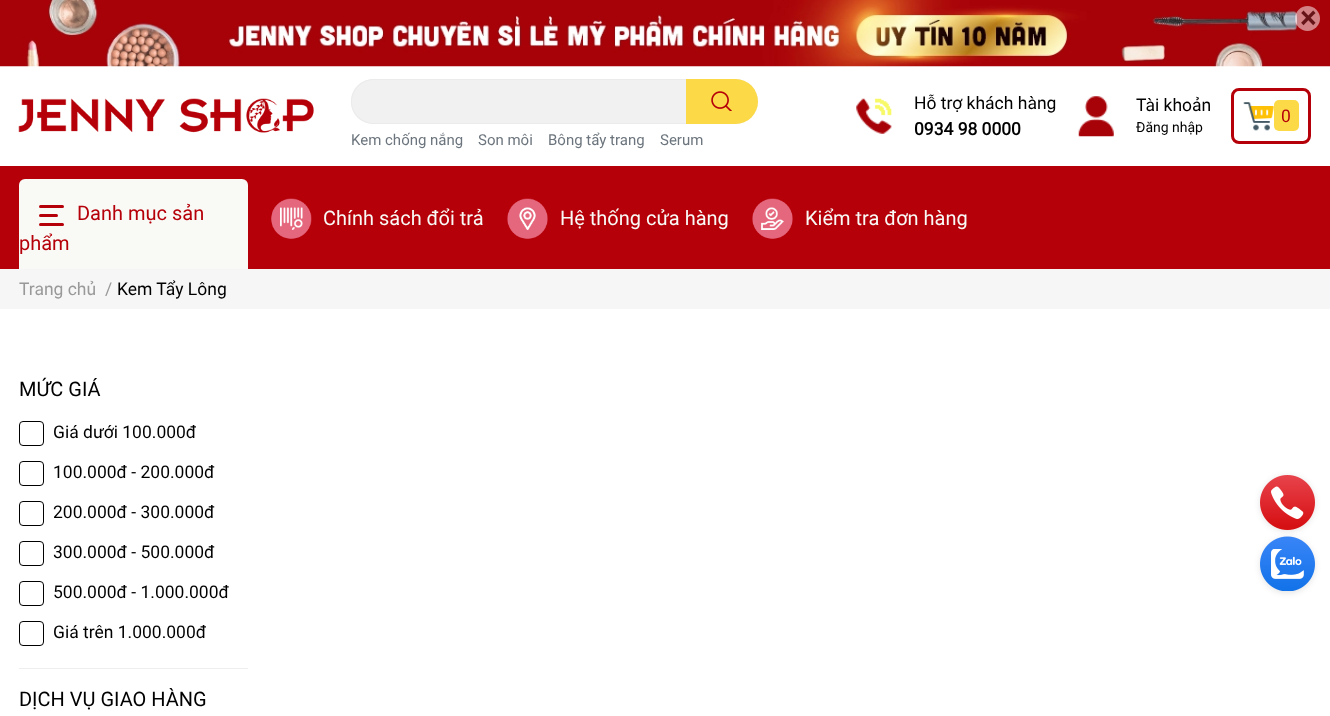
(async () => {
const canvas = document.querySelector("canvas")
canvas.width = 1330
canvas.height = 716
const c = canvas.getContext("2d")
c.miterLimit = 4
c.fontKerning = "normal"
function T(s,x,y){c.fillText(s,x,y)}
function R(x,y,w,h){c.fillRect(x,y,w,h)}
function Q(x,y,w,h,r){c.beginPath();c.roundRect(x,y,w,h,r);c.fill()}
async function I(src,x,y,w,h){const img=new Image();img.src=src;await img.decode();c.drawImage(img,x,y,w,h)}
let path
c.fillStyle="#fff"
R(0,0,1330,716)
await I("1.png",0,0,1330,67)
c.fillStyle="#ffffff80"
c.beginPath()
c.arc(1307.5,18.5,12.5,0,7)
c.fill()
c.font="bold 30px Roboto"
c.fillStyle="#661417"
T("×",1300,28)
await I("2.png",18,98,296,35)
await I("3.png",856,98,36,36)
c.font="17.5px Roboto"
c.fillStyle="#000"
T("Hỗ trợ khách hàng",914,109)
c.font="bold 17.5px Roboto"
T("0934 98 0000",914,135)
await I("4.png",1078,96,36,41)
c.font="17.5px Roboto"
T("Tài khoản",1136,111)
c.font="14px Roboto"
T("Đăng nhập",1136,132)
c.beginPath()
c.roundRect(1232.5,89.5,77,53,6.5)
c.strokeStyle="#b50009"
c.lineWidth=3
c.stroke()
await I("5.png",1243,102,31,29)
c.fillStyle="#fbd947"
Q(1274,100,25,31,5)
c.font="17.5px Roboto"
c.fillStyle="#b50009"
T("0",1281,122)
c.fillStyle="#f1f1f1"
Q(351,79,407,45,22.5)
c.fillStyle="#ebebeb"
path = new Path2D("M374 79c-13 0-23 10-23 23c0 12 10 22 23 22h362l6-1h-368c-12 0-22-10-22-21c0-12 10-22 22-22h368l-6-1zm383 16v13c1-4 1-9 0-13z")
c.fill(path,"evenodd")
c.fillStyle="#fbd947"
c.beginPath()
c.roundRect(686,79,72,45,[0,22.5,22.5,0])
c.fill()
await I("6.png",711,91,21,20)
c.font="15px Roboto"
c.fillStyle="#6c757d"
T("Kem chống nắng",351,145)
T("Son môi",478,145)
T("Bông tẩy trang",548,145)
T("Serum",660,145)
c.fillStyle="#b50009"
R(0,166,1330,103)
c.fillStyle="#f9f9f6"
c.beginPath()
c.roundRect(19,179,229,90,[6,6,0,0])
c.fill()
c.fillStyle="#b50009"
Q(39,205,25,3,1.5)
Q(39,214,19,3,1.5)
Q(39,223,25,3,1.5)
c.font="20px Roboto"
T("Danh mục sản",77,220)
T("phẩm",19,250)
await I("7.png",271,198,41,41)
c.fillStyle="#f9f9f6"
T("Chính sách đổi trả",323,225)
await I("8.png",507,198,41,41)
T("Hệ thống cửa hàng",560,225)
await I("9.png",752,198,41,41)
T("Kiểm tra đơn hàng",805,225)
c.fillStyle="#f6f6f6"
R(0,269,1330,40)
c.font="17.5px Roboto"
c.fillStyle="#999"
T("Trang chủ",19,295)
T("/",105,295)
c.fillStyle="#000"
T("Kem Tẩy Lông",117,295)
c.font="20px Roboto"
T("MỨC GIÁ",19,396)
c.beginPath()
c.roundRect(19.5,421.5,24,24,3.5)
c.strokeStyle="#000"
c.lineWidth=1
c.stroke()
c.font="17.5px Roboto"
T("Giá dưới 100.000đ",53,438)
c.beginPath()
c.roundRect(19.5,461.5,24,24,3.5)
c.stroke()
T("100.000đ - 200.000đ",53,478)
c.beginPath()
c.roundRect(19.5,501.5,24,24,3.5)
c.stroke()
T("200.000đ - 300.000đ",53,518)
c.beginPath()
c.roundRect(19.5,541.5,24,24,3.5)
c.stroke()
T("300.000đ - 500.000đ",53,558)
c.beginPath()
c.roundRect(19.5,581.5,24,24,3.5)
c.stroke()
T("500.000đ - 1.000.000đ",53,598)
c.beginPath()
c.roundRect(19.5,621.5,24,24,3.5)
c.stroke()
T("Giá trên 1.000.000đ",53,638)
c.fillStyle="#eee"
R(19,668,229,1)
c.font="20px Roboto"
c.fillStyle="#000"
T("DỊCH VỤ GIAO HÀNG",19,706)
c.fillStyle="#0000001c"
c.filter="blur(3px)"
c.beginPath()
c.roundRect(1260,476,55,55,27.5)
c.fill()
c.filter="none"
await I("10.png",1260,475,55,55)
c.filter="blur(3px)"
c.beginPath()
c.roundRect(1260,538,55,55,27.5)
c.fill()
c.filter="none"
await I("11.png",1260,536,55,55)
})()
